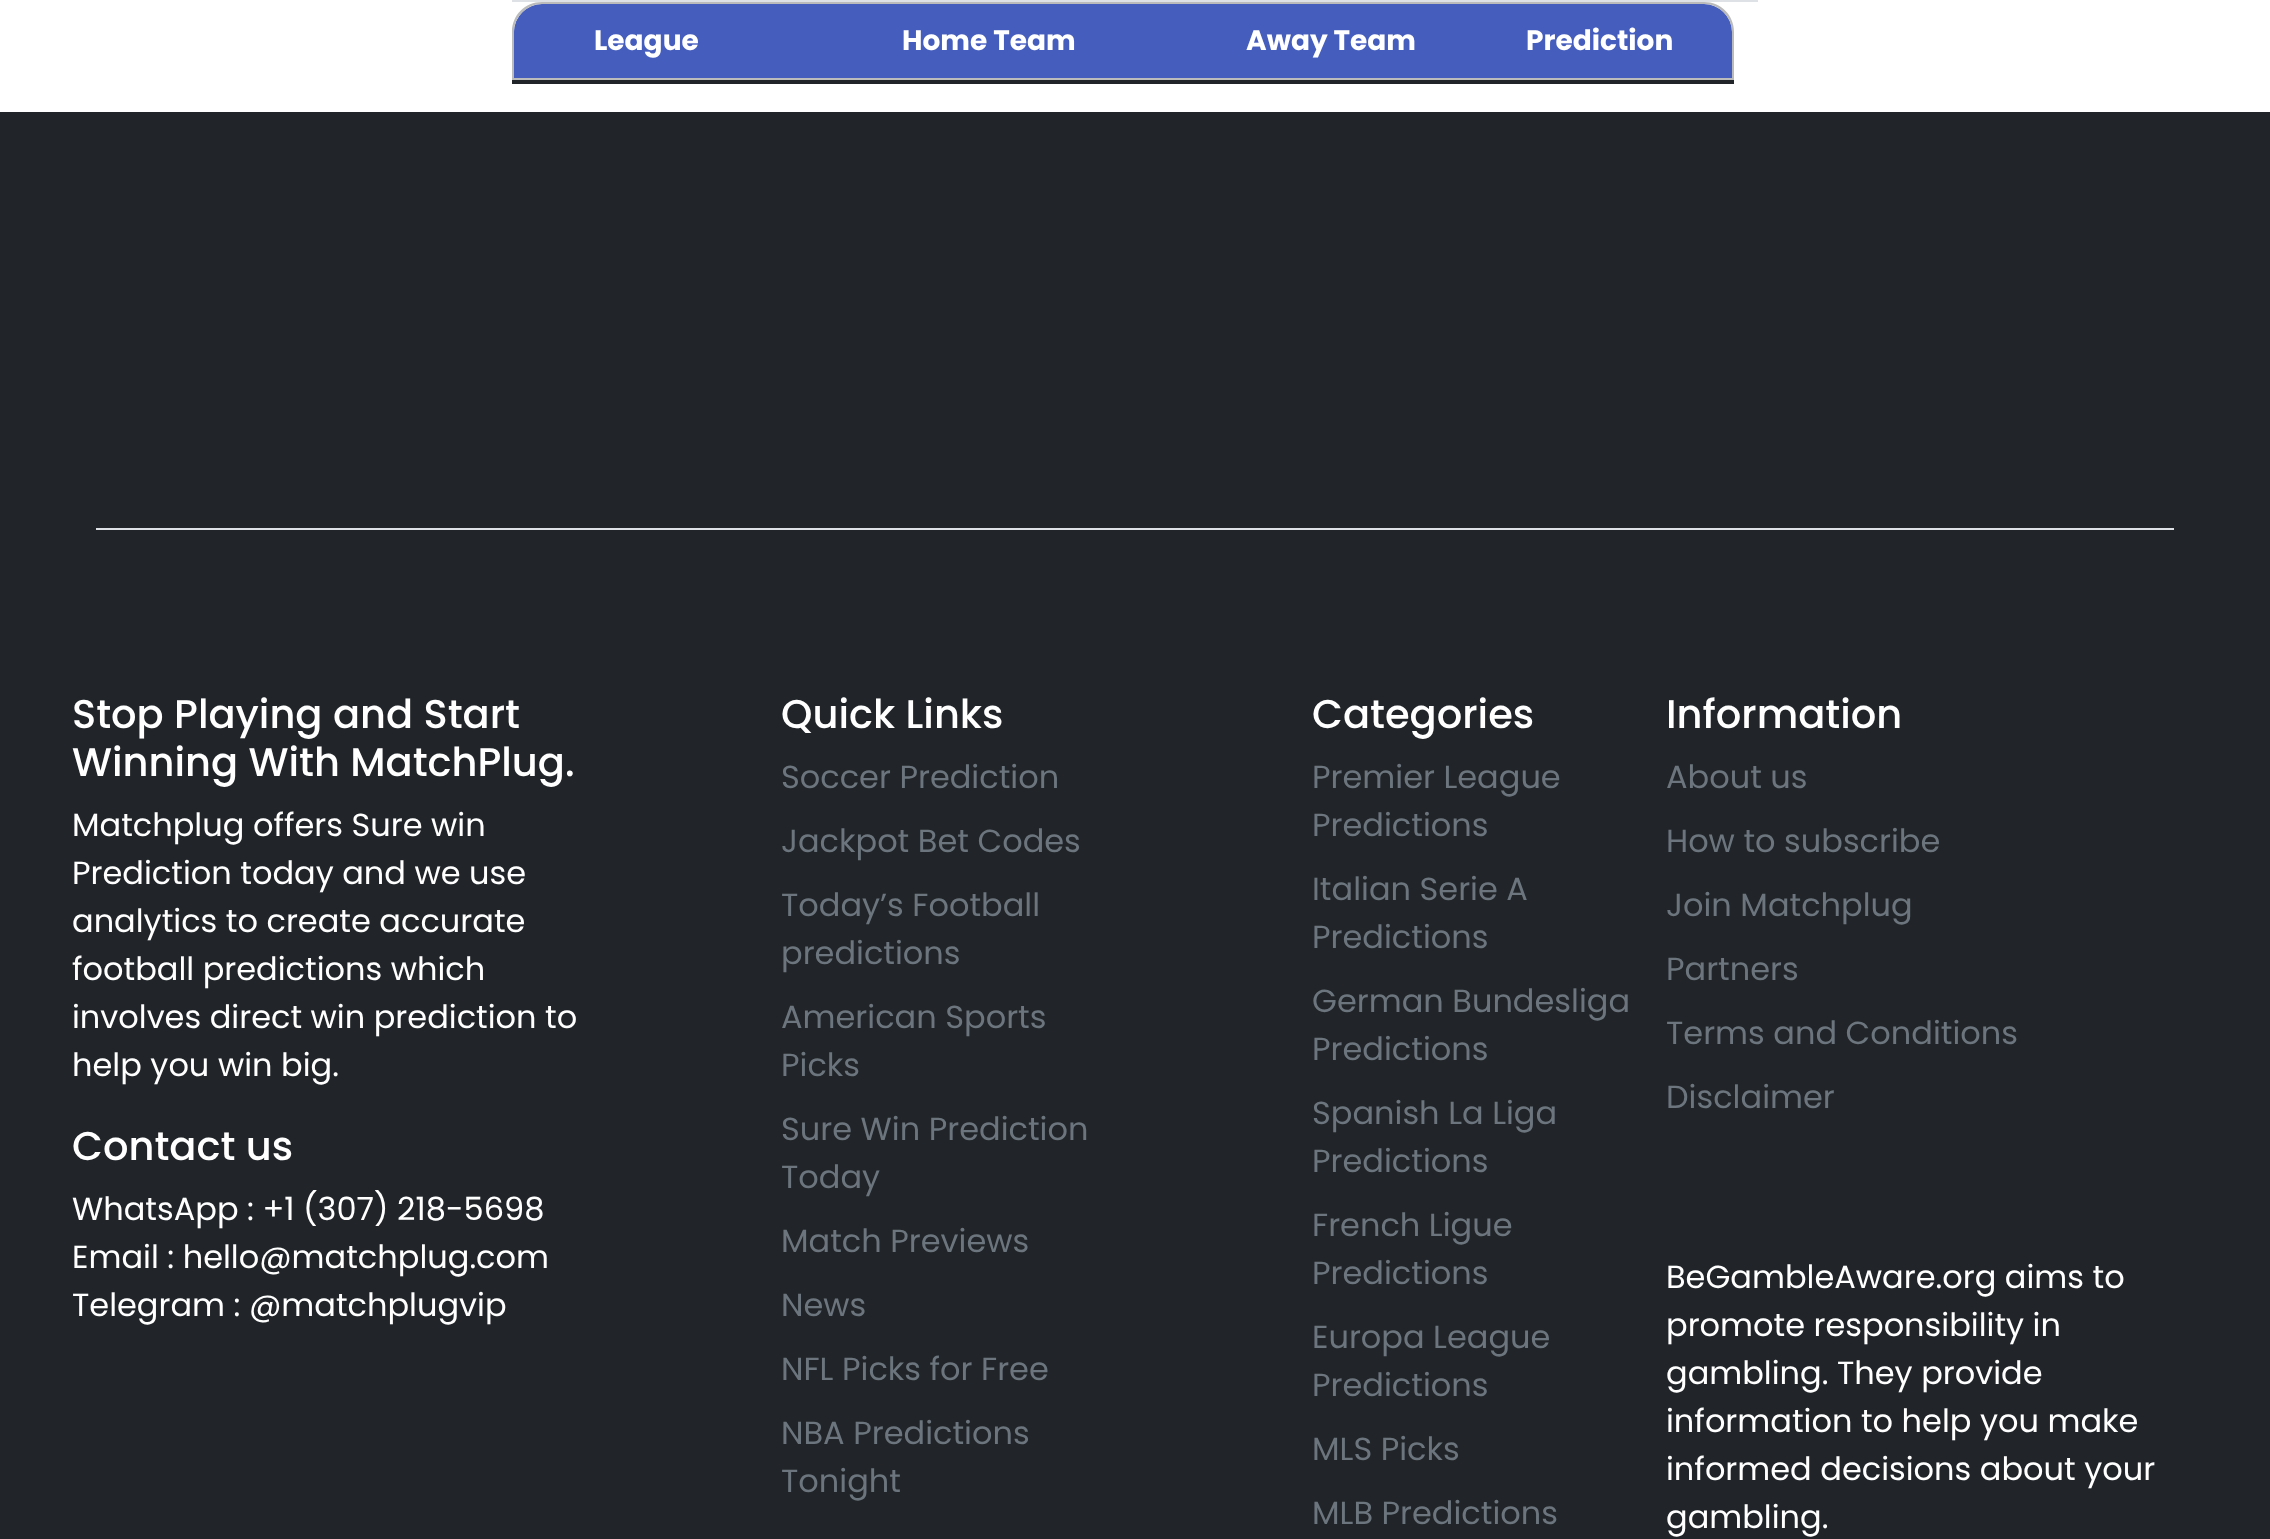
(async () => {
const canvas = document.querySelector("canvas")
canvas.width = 2270
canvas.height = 1539
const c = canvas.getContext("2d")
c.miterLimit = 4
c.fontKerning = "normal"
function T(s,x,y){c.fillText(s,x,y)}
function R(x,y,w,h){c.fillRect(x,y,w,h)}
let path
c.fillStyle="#fff"
R(0,0,2270,1539)
c.fillStyle="#dee2e6"
R(512,0,1246,2)
c.fillStyle="#455dbc"
c.beginPath()
c.roundRect(514,4,266,74,[28,0,0,0])
c.fill()
c.fillStyle="#bbb"
path = new Path2D("M542 2h238v78h-268v-48c0-17 13-30 30-30zm0 2h238v74h-266v-46c0-15 13-28 28-28z")
c.fill(path,"evenodd")
c.font="bold 28px Poppins"
c.fillStyle="#fff"
T("League",594,50)
c.fillStyle="#455dbc"
R(780,4,686,74)
c.fillStyle="#bbb"
R(780,2,686,2)
R(780,78,686,2)
c.fillStyle="#fff"
T("Home Team",902,50)
T("Away Team",1246,50)
c.fillStyle="#455dbc"
c.beginPath()
c.roundRect(1466,4,266,74,[0,28,0,0])
c.fill()
c.fillStyle="#bbb"
path = new Path2D("M1466 2h238c17 0 30 13 30 30v48h-268zm0 2h238c15 0 28 13 28 28v46h-266z")
c.fill(path,"evenodd")
c.fillStyle="#fff"
T("Prediction",1526,50)
c.fillStyle="#212529"
R(512,80,1222,4)
R(0,112,2270,1427)
c.fillStyle="#dee2e6"
R(96,528,2078,2)
c.font="500 40px Poppins"
c.fillStyle="#fff"
T("Stop Playing and Start",72,728)
T("Winning With MatchPlug.",72,776)
c.font="32px Poppins"
T("Matchplug offers Sure win",72,836)
T("Prediction today and we use",72,884)
T("analytics to create accurate",72,932)
T("football predictions which",72,980)
T("involves direct win prediction to",72,1028)
T("help you win big.",72,1076)
c.font="500 40px Poppins"
T("Contact us",72,1160)
c.font="32px Poppins"
T("WhatsApp : +1 (307) 218-5698",72,1220)
T("Email : hello@matchplug.com",72,1268)
T("Telegram : @matchplugvip",72,1316)
c.font="500 40px Poppins"
T("Quick Links",781,728)
c.font="32px Poppins"
c.fillStyle="#6c757d"
T("Soccer Prediction",781,788)
T("Jackpot Bet Codes",781,852)
T("Today’s Football",781,916)
T("predictions",781,964)
T("American Sports",781,1028)
T("Picks",781,1076)
T("Sure Win Prediction",781,1140)
T("Today",781,1188)
T("Match Previews",781,1252)
T("News",781,1316)
T("NFL Picks for Free",781,1380)
T("NBA Predictions",781,1444)
T("Tonight",781,1492)
c.font="500 40px Poppins"
c.fillStyle="#fff"
T("Categories",1312,728)
c.font="32px Poppins"
c.fillStyle="#6c757d"
T("Premier League",1312,788)
T("Predictions",1312,836)
T("Italian Serie A",1312,900)
T("Predictions",1312,948)
T("German Bundesliga",1312,1012)
T("Predictions",1312,1060)
T("Spanish La Liga",1312,1124)
T("Predictions",1312,1172)
T("French Ligue",1312,1236)
T("Predictions",1312,1284)
T("Europa League",1312,1348)
T("Predictions",1312,1396)
T("MLS Picks",1312,1460)
T("MLB Predictions",1312,1524)
c.font="500 40px Poppins"
c.fillStyle="#fff"
T("Information",1666,728)
c.font="32px Poppins"
c.fillStyle="#6c757d"
T("About us",1666,788)
T("How to subscribe",1666,852)
T("Join Matchplug",1666,916)
T("Partners",1666,980)
T("Terms and Conditions",1666,1044)
T("Disclaimer",1666,1108)
c.fillStyle="#fff"
T("BeGambleAware.org aims to",1666,1288)
T("promote responsibility in",1666,1336)
T("gambling. They provide",1666,1384)
T("information to help you make",1666,1432)
T("informed decisions about your",1666,1480)
T("gambling.",1666,1528)
})()
